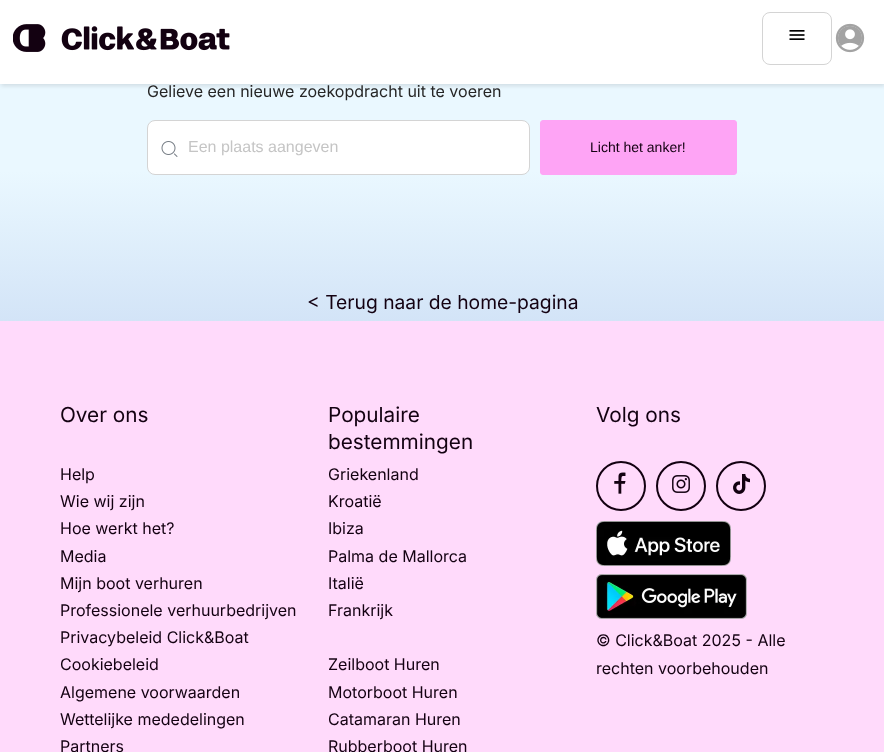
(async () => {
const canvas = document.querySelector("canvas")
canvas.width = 884
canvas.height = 752
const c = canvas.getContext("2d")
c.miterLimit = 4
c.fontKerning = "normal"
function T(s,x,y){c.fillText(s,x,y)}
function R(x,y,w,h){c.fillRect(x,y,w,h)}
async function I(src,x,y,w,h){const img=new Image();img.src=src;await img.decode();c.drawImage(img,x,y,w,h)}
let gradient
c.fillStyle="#ffdafb"
R(0,0,884,752)
gradient = c.createLinearGradient(442,21,442,321)
gradient.addColorStop(0,"#eaf8ff")
gradient.addColorStop(.5,"#eaf8ff")
gradient.addColorStop(1,"#d3e4f7")
c.fillStyle = gradient
R(0,84,884,237)
c.fillStyle="#0000001c"
c.filter="blur(2px)"
c.beginPath()
c.rect(1,2,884,84)
c.fill()
c.filter="none"
c.fillStyle="#fff"
R(0,0,884,84)
await I("1.png",13,24,217,28)
c.beginPath()
c.roundRect(762.5,12.5,69,52,7.5)
c.strokeStyle="#d4d4d4"
c.stroke()
await I("2.png",789,30,16,10)
await I("3.png",835,23,30,30)
c.font="16px Inter"
c.fillStyle="#262626"
T("Gelieve een nieuwe zoekopdracht uit te voeren",147,97)
c.fillStyle="#fff"
c.beginPath()
c.roundRect(147.5,120.5,382,54,7.5)
c.fill()
c.stroke()
await I("4.png",161,141,17,16)
c.font="16px Liberation Sans"
c.fillStyle="#c5c5c5"
T("Een plaats aangeven",188,152)
c.fillStyle="#fea4f5"
c.beginPath()
c.roundRect(540.5,120.5,196,54,2.5)
c.fill()
c.strokeStyle="#fea4f5"
c.stroke()
c.font="14px Liberation Sans"
c.fillStyle="#130111"
T("Licht het anker!",590,152)
c.font="19.25px Inter"
T("< Terug naar de home-pagina",307,309)
c.font="20.75px Inter"
T("Over ons",60,422)
c.font="16px Inter"
T("Help",60,480)
T("Wie wij zijn",60,507)
T("Hoe werkt het?",60,534)
T("Media",60,562)
T("Mijn boot verhuren",60,589)
T("Professionele verhuurbedrijven",60,616)
T("Privacybeleid Click&Boat",60,643)
T("Cookiebeleid",60,670)
T("Algemene voorwaarden",60,698)
T("Wettelijke mededelingen",60,725)
T("Partners",60,752)
c.font="20.75px Inter"
T("Populaire",328,422)
T("bestemmingen",328,449)
c.font="16px Inter"
T("Griekenland",328,480)
T("Kroatië",328,507)
T("Ibiza",328,534)
T("Palma de Mallorca",328,562)
T("Italië",328,589)
T("Frankrijk",328,616)
T("Zeilboot Huren",328,670)
T("Motorboot Huren",328,698)
T("Catamaran Huren",328,725)
T("Rubberboot Huren",328,752)
c.font="20.75px Inter"
T("Volg ons",596,422)
c.beginPath()
c.arc(621,486,24,0,7)
c.strokeStyle="#130111"
c.lineWidth=2
c.stroke()
await I("5.png",614,472,12,22)
c.beginPath()
c.arc(681,486,24,0,7)
c.stroke()
await I("6.png",672,475,18,18)
c.beginPath()
c.arc(741,486,24,0,7)
c.stroke()
await I("7.png",733,474,17,20)
await I("8.png",596,521,135,45)
await I("9.png",596,574,151,45)
c.font="16px Inter"
T("© Click&Boat 2025 - Alle",596,646)
T("rechten voorbehouden",596,674)
})()
